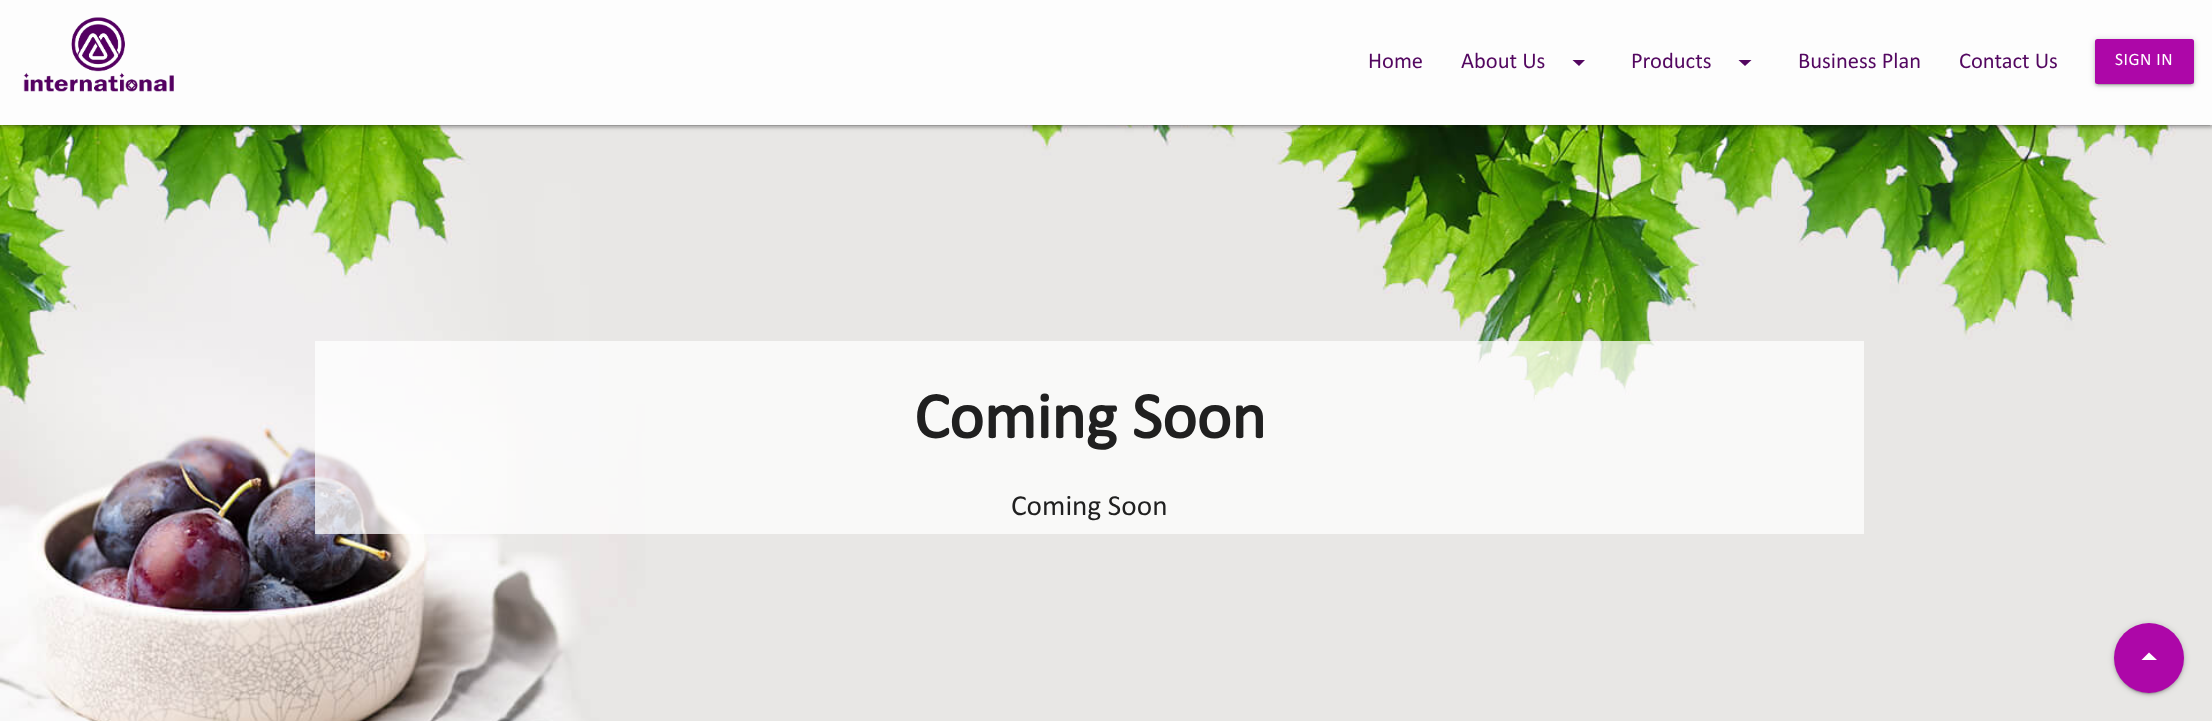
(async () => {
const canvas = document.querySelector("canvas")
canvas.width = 2212
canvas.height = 721
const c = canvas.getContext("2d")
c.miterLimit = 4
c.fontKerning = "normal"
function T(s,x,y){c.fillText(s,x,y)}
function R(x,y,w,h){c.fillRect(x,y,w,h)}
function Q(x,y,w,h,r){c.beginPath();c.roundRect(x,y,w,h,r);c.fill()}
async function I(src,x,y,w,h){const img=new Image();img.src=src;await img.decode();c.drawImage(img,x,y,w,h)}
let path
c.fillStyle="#fff"
R(0,0,2212,721)
await I("2.png",0,125,2212,596)
c.fillStyle="#00000033"
c.filter="blur(3px)"
c.beginPath()
c.rect(0,1,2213,125)
c.fill()
c.filter="none"
c.fillStyle="#0000001f"
c.filter="blur(0.5px)"
c.beginPath()
c.rect(3,6,2207,120)
c.fill()
c.filter="none"
c.fillStyle="#00000024"
c.filter="blur(1px)"
c.beginPath()
c.rect(0,3,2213,125)
c.fill()
c.filter="none"
c.fillStyle="#fdfdfd"
R(0,0,2212,125)
await I("1.png",23,17,151,75)
c.font="22.5px Calibri"
c.fillStyle="#530760"
T("Home",1368,68)
T("About Us",1461,68)
path = new Path2D("M1572.5 60h12.5l-6 6z")
c.fill(path)
T("Products",1631,68)
path = new Path2D("M1738.5 60h13l-6.5 6z")
c.fill(path)
T("Business Plan",1798,68)
T("Contact Us",1959,68)
c.fillStyle="#00000033"
c.filter="blur(3px)"
c.beginPath()
c.roundRect(2095,40,99,45,2.5)
c.fill()
c.filter="none"
c.fillStyle="#0000001f"
c.filter="blur(0.5px)"
c.beginPath()
c.rect(2098,45,93,40)
c.fill()
c.filter="none"
c.fillStyle="#00000024"
c.filter="blur(1px)"
c.beginPath()
c.roundRect(2095,41,99,45,2.5)
c.fill()
c.filter="none"
c.fillStyle="#ad07a8"
Q(2095,39,99,45,2.5)
c.letterSpacing="0.5px"
c.font="17.5px Calibri"
c.fillStyle="#fff"
T("SIGN IN",2115,65)
c.fillStyle="#ffffffbd"
R(315,341,1549,193)
c.letterSpacing="0px"
c.font="bold 65.75px Calibri"
c.fillStyle="#202020"
T("Coming Soon",914,438)
c.font="29.25px Calibri"
T("Coming Soon",1011,515)
c.fillStyle="#00000033"
c.filter="blur(3px)"
c.beginPath()
c.roundRect(2114,624,70,70,35)
c.fill()
c.filter="none"
c.fillStyle="#0000001f"
c.filter="blur(0.5px)"
c.beginPath()
c.roundRect(2116,629,65,65,32.5)
c.fill()
c.filter="none"
c.fillStyle="#00000024"
c.filter="blur(1px)"
c.beginPath()
c.roundRect(2114,625,70,70,35)
c.fill()
c.filter="none"
c.fillStyle="#ad07a8"
c.beginPath()
c.arc(2149,658,35,0,7)
c.fill()
c.fillStyle="#fff"
path = new Path2D("M2141.5 660l7.5-7.5l8 7.5z")
c.fill(path)
})()
